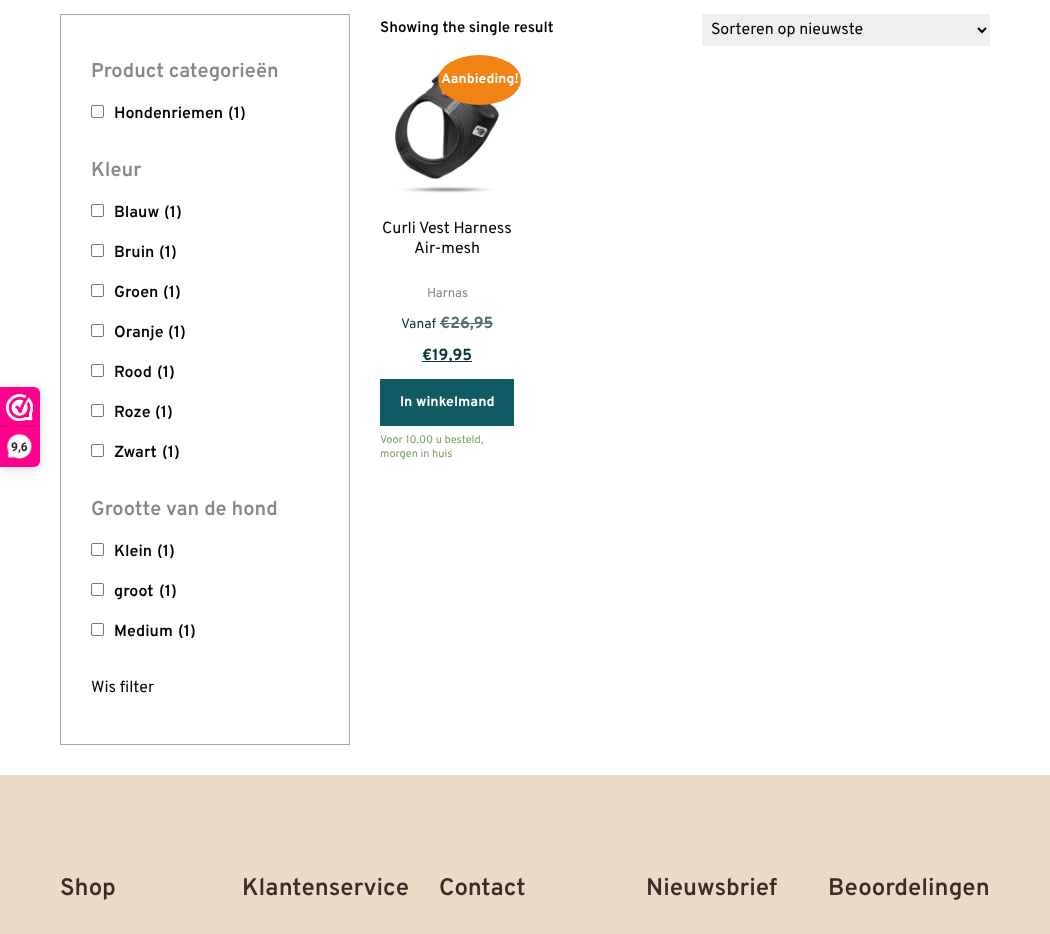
(async () => {
const canvas = document.querySelector("canvas")
canvas.width = 1050
canvas.height = 934
const c = canvas.getContext("2d")
c.miterLimit = 4
c.fontKerning = "normal"
function T(s,x,y){c.fillText(s,x,y)}
function R(x,y,w,h){c.fillRect(x,y,w,h)}
async function I(src,x,y,w,h){const img=new Image();img.src=src;await img.decode();c.drawImage(img,x,y,w,h)}
let path
c.fillStyle="#fff"
R(0,0,1050,934)
c.fillStyle="#00000026"
c.filter="blur(5px)"
c.beginPath()
c.roundRect(0,389,40,80,6)
c.fill()
c.filter="none"
c.fillStyle="#fe008c"
c.beginPath()
c.roundRect(0,387,40,80,[0,6,6,0])
c.fill()
await I("1.png",6,394,27,27)
c.fillStyle="#d80077"
R(0,426,39,1)
await I("2.png",6,433,26,26)
c.font="bold 12px Roboto"
c.fillStyle="#272626"
T("9,6",11,451)
c.strokeStyle="#a7a7a7"
c.strokeRect(60.5,14.5,289,730)
c.font="600 20px Overpass"
c.fillStyle="#84888c"
T("Product categorieën",91,77)
c.beginPath()
c.roundRect(91.5,105.5,12,12,1.5)
c.strokeStyle="#767676"
c.stroke()
c.font="600 16px Overpass"
c.fillStyle="#000"
T("Hondenriemen",114,118)
T("(1)",228,118)
c.font="600 20px Overpass"
c.fillStyle="#84888c"
T("Kleur",91,176)
c.beginPath()
c.roundRect(91.5,204.5,12,12,1.5)
c.stroke()
c.font="600 16px Overpass"
c.fillStyle="#000"
T("Blauw",114,217)
T("(1)",164,217)
c.beginPath()
c.roundRect(91.5,244.5,12,12,1.5)
c.stroke()
T("Bruin",114,257)
T("(1)",159,257)
c.beginPath()
c.roundRect(91.5,284.5,12,12,1.5)
c.stroke()
T("Groen",114,297)
T("(1)",163,297)
c.beginPath()
c.roundRect(91.5,324.5,12,12,1.5)
c.stroke()
T("Oranje",114,337)
T("(1)",168,337)
c.beginPath()
c.roundRect(91.5,364.5,12,12,1.5)
c.stroke()
T("Rood",114,377)
T("(1)",157,377)
c.beginPath()
c.roundRect(91.5,404.5,12,12,1.5)
c.stroke()
T("Roze",114,417)
T("(1)",155,417)
c.beginPath()
c.roundRect(91.5,444.5,12,12,1.5)
c.stroke()
T("Zwart",114,457)
T("(1)",162,457)
c.font="600 20px Overpass"
c.fillStyle="#84888c"
T("Grootte van de hond",91,515)
c.beginPath()
c.roundRect(91.5,543.5,12,12,1.5)
c.stroke()
c.font="600 16px Overpass"
c.fillStyle="#000"
T("Klein",114,556)
T("(1)",157,556)
c.beginPath()
c.roundRect(91.5,583.5,12,12,1.5)
c.stroke()
T("groot",114,596)
T("(1)",159,596)
c.beginPath()
c.roundRect(91.5,623.5,12,12,1.5)
c.stroke()
T("Medium",114,636)
T("(1)",178,636)
c.font="16px Overpass"
T("Wis filter",91,692)
c.font="600 15px Overpass"
T("Showing the single result",380,32)
c.fillStyle="#efefef"
R(702,14,288,32)
path = new Path2D("M978 28l4 4l4-4")
c.strokeStyle="#000"
c.lineWidth=2
c.stroke(path)
c.font="16px Overpass"
c.fillStyle="#000"
T("Sorteren op nieuwste",711,34)
await I("3.png",395,70,104,123)
c.fillStyle="#f18214"
c.beginPath()
c.ellipse(479.5,80,41.5,25,0,0,7)
c.fill()
c.font="bold 13.75px Overpass"
c.fillStyle="#fff"
T("Aanbieding!",441,83)
c.font="16px Overpass"
c.fillStyle="#000"
T("Curli Vest Harness",382,233)
T("Air-mesh",414,253)
c.font="13px Overpass"
c.fillStyle="#84888c"
T("Harnas",427,297)
c.font="13.75px Overpass"
c.fillStyle="#093337"
T("Vanaf",401,328)
c.font="bold 16px Overpass"
c.fillStyle="#537073"
T("€26,95",440,328)
R(440,323,53,1)
c.fillStyle="#093337"
R(422,361,50,1)
T("€19,95",422,360)
c.fillStyle="#105b63"
R(380,379,134,47)
c.font="bold 14px Overpass"
c.fillStyle="#fff"
T("In winkelmand",400,406)
c.font="11px Overpass"
c.fillStyle="#77a464"
T("Voor 10.00 u besteld,",380,443)
T("morgen in huis",380,457)
c.fillStyle="#ecdac6"
R(0,775,1050,159)
c.font="600 24px Overpass"
c.fillStyle="#3a2d26"
T("Shop",60,895)
T("Klantenservice",242,895)
T("Contact",439,895)
T("Nieuwsbrief",646,895)
T("Beoordelingen",828,895)
})()
